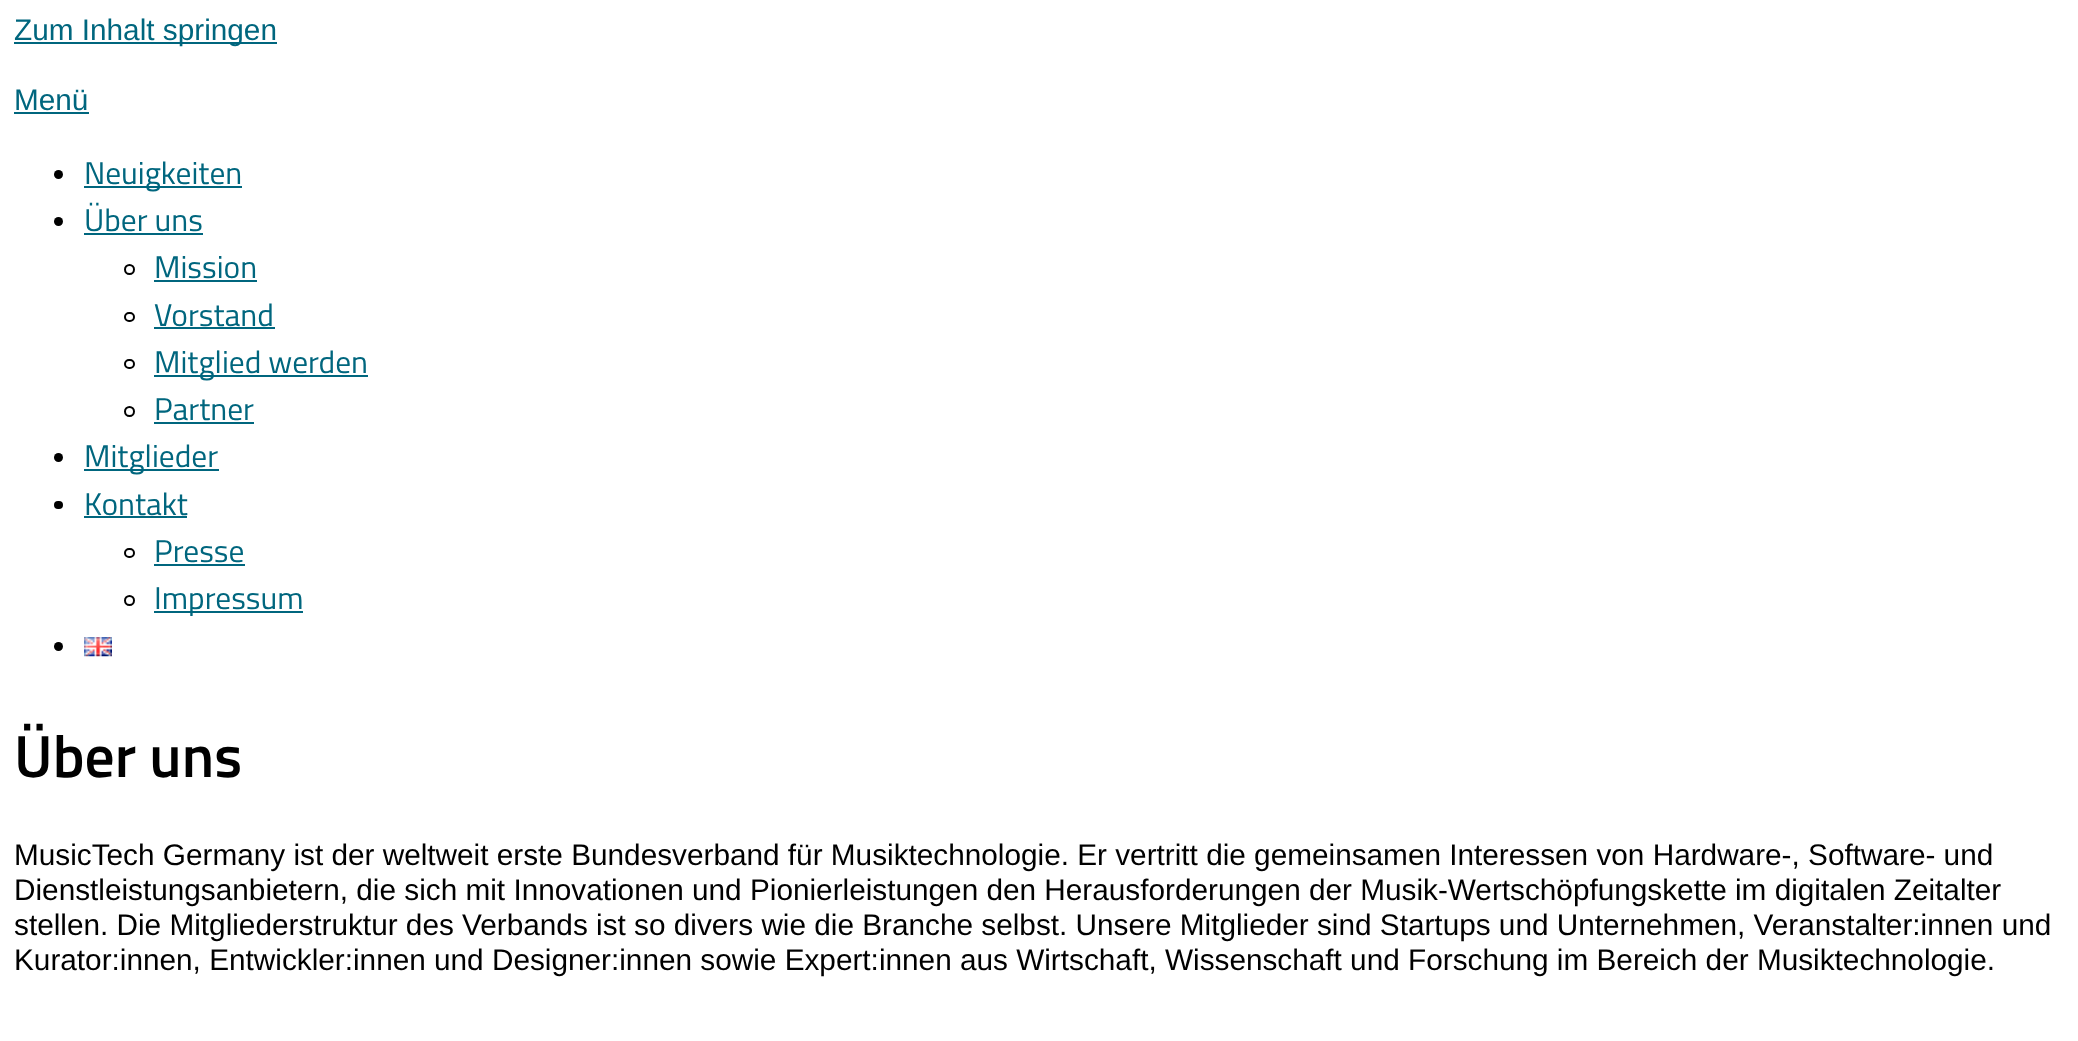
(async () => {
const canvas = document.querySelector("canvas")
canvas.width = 2078
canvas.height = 1041
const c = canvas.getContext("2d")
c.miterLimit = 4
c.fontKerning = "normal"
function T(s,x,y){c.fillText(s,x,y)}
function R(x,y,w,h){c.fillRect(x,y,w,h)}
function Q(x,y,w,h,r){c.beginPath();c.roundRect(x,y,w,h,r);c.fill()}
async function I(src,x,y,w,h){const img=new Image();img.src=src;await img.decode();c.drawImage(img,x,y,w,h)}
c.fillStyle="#fff"
R(0,0,2078,1041)
c.fillStyle="#00667e"
R(14,42,263,2)
c.font="29.75px Liberation Sans"
T("Zum Inhalt springen",14,40)
T("Menü",14,110)
R(14,112,75,2)
c.fillStyle="#000"
c.beginPath()
c.arc(58.5,174.5,4.5,0,7)
c.fill()
c.fillStyle="#00667e"
R(84,186,158,2)
c.font="31.5px Titillium Web"
T("Neuigkeiten",84,184)
c.fillStyle="#000"
c.beginPath()
c.arc(58.5,221.5,4.5,0,7)
c.fill()
c.fillStyle="#00667e"
T("Über uns",84,231)
R(84,233,119,2)
c.beginPath()
c.arc(129.5,269.5,4.5,0,7)
c.strokeStyle="#000"
c.lineWidth=2
c.stroke()
T("Mission",154,278)
R(154,280,103,2)
c.beginPath()
c.roundRect(125,313,9,8,4)
c.stroke()
T("Vorstand",154,326)
R(154,327,121,2)
c.beginPath()
c.roundRect(125,360,9,8,4)
c.stroke()
R(154,375,214,2)
T("Mitglied werden",154,373)
c.beginPath()
c.arc(129.5,411.5,4.5,0,7)
c.stroke()
T("Partner",154,420)
R(154,422,100,2)
c.fillStyle="#000"
c.beginPath()
c.arc(58.5,457.5,4.5,0,7)
c.fill()
c.fillStyle="#00667e"
R(84,469,135,2)
T("Mitglieder",84,467)
c.fillStyle="#000"
Q(54,501,9,8,4)
c.fillStyle="#00667e"
T("Kontakt",84,515)
R(84,516,103,2)
c.beginPath()
c.roundRect(125,549,9,8,4)
c.stroke()
T("Presse",154,562)
R(154,564,91,2)
c.beginPath()
c.arc(129.5,600.5,4.5,0,7)
c.stroke()
R(154,611,149,2)
T("Impressum",154,609)
c.fillStyle="#000"
c.beginPath()
c.arc(58.5,646.5,4.5,0,7)
c.fill()
await I("1.png",84,637,28,20)
c.font="600 59.5px Titillium Web"
T("Über uns",14,777)
c.font="29.75px Liberation Sans"
T("MusicTech Germany ist der weltweit erste Bundesverband für Musiktechnologie. Er vertritt die gemeinsamen Interessen von Hardware-, Software- und",14,865)
T("Dienstleistungsanbietern, die sich mit Innovationen und Pionierleistungen den Herausforderungen der Musik-Wertschöpfungskette im digitalen Zeitalter",14,900)
T("stellen. Die Mitgliederstruktur des Verbands ist so divers wie die Branche selbst. Unsere Mitglieder sind Startups und Unternehmen, Veranstalter:innen und",14,935)
T("Kurator:innen, Entwickler:innen und Designer:innen sowie Expert:innen aus Wirtschaft, Wissenschaft und Forschung im Bereich der Musiktechnologie.",14,970)
})()
